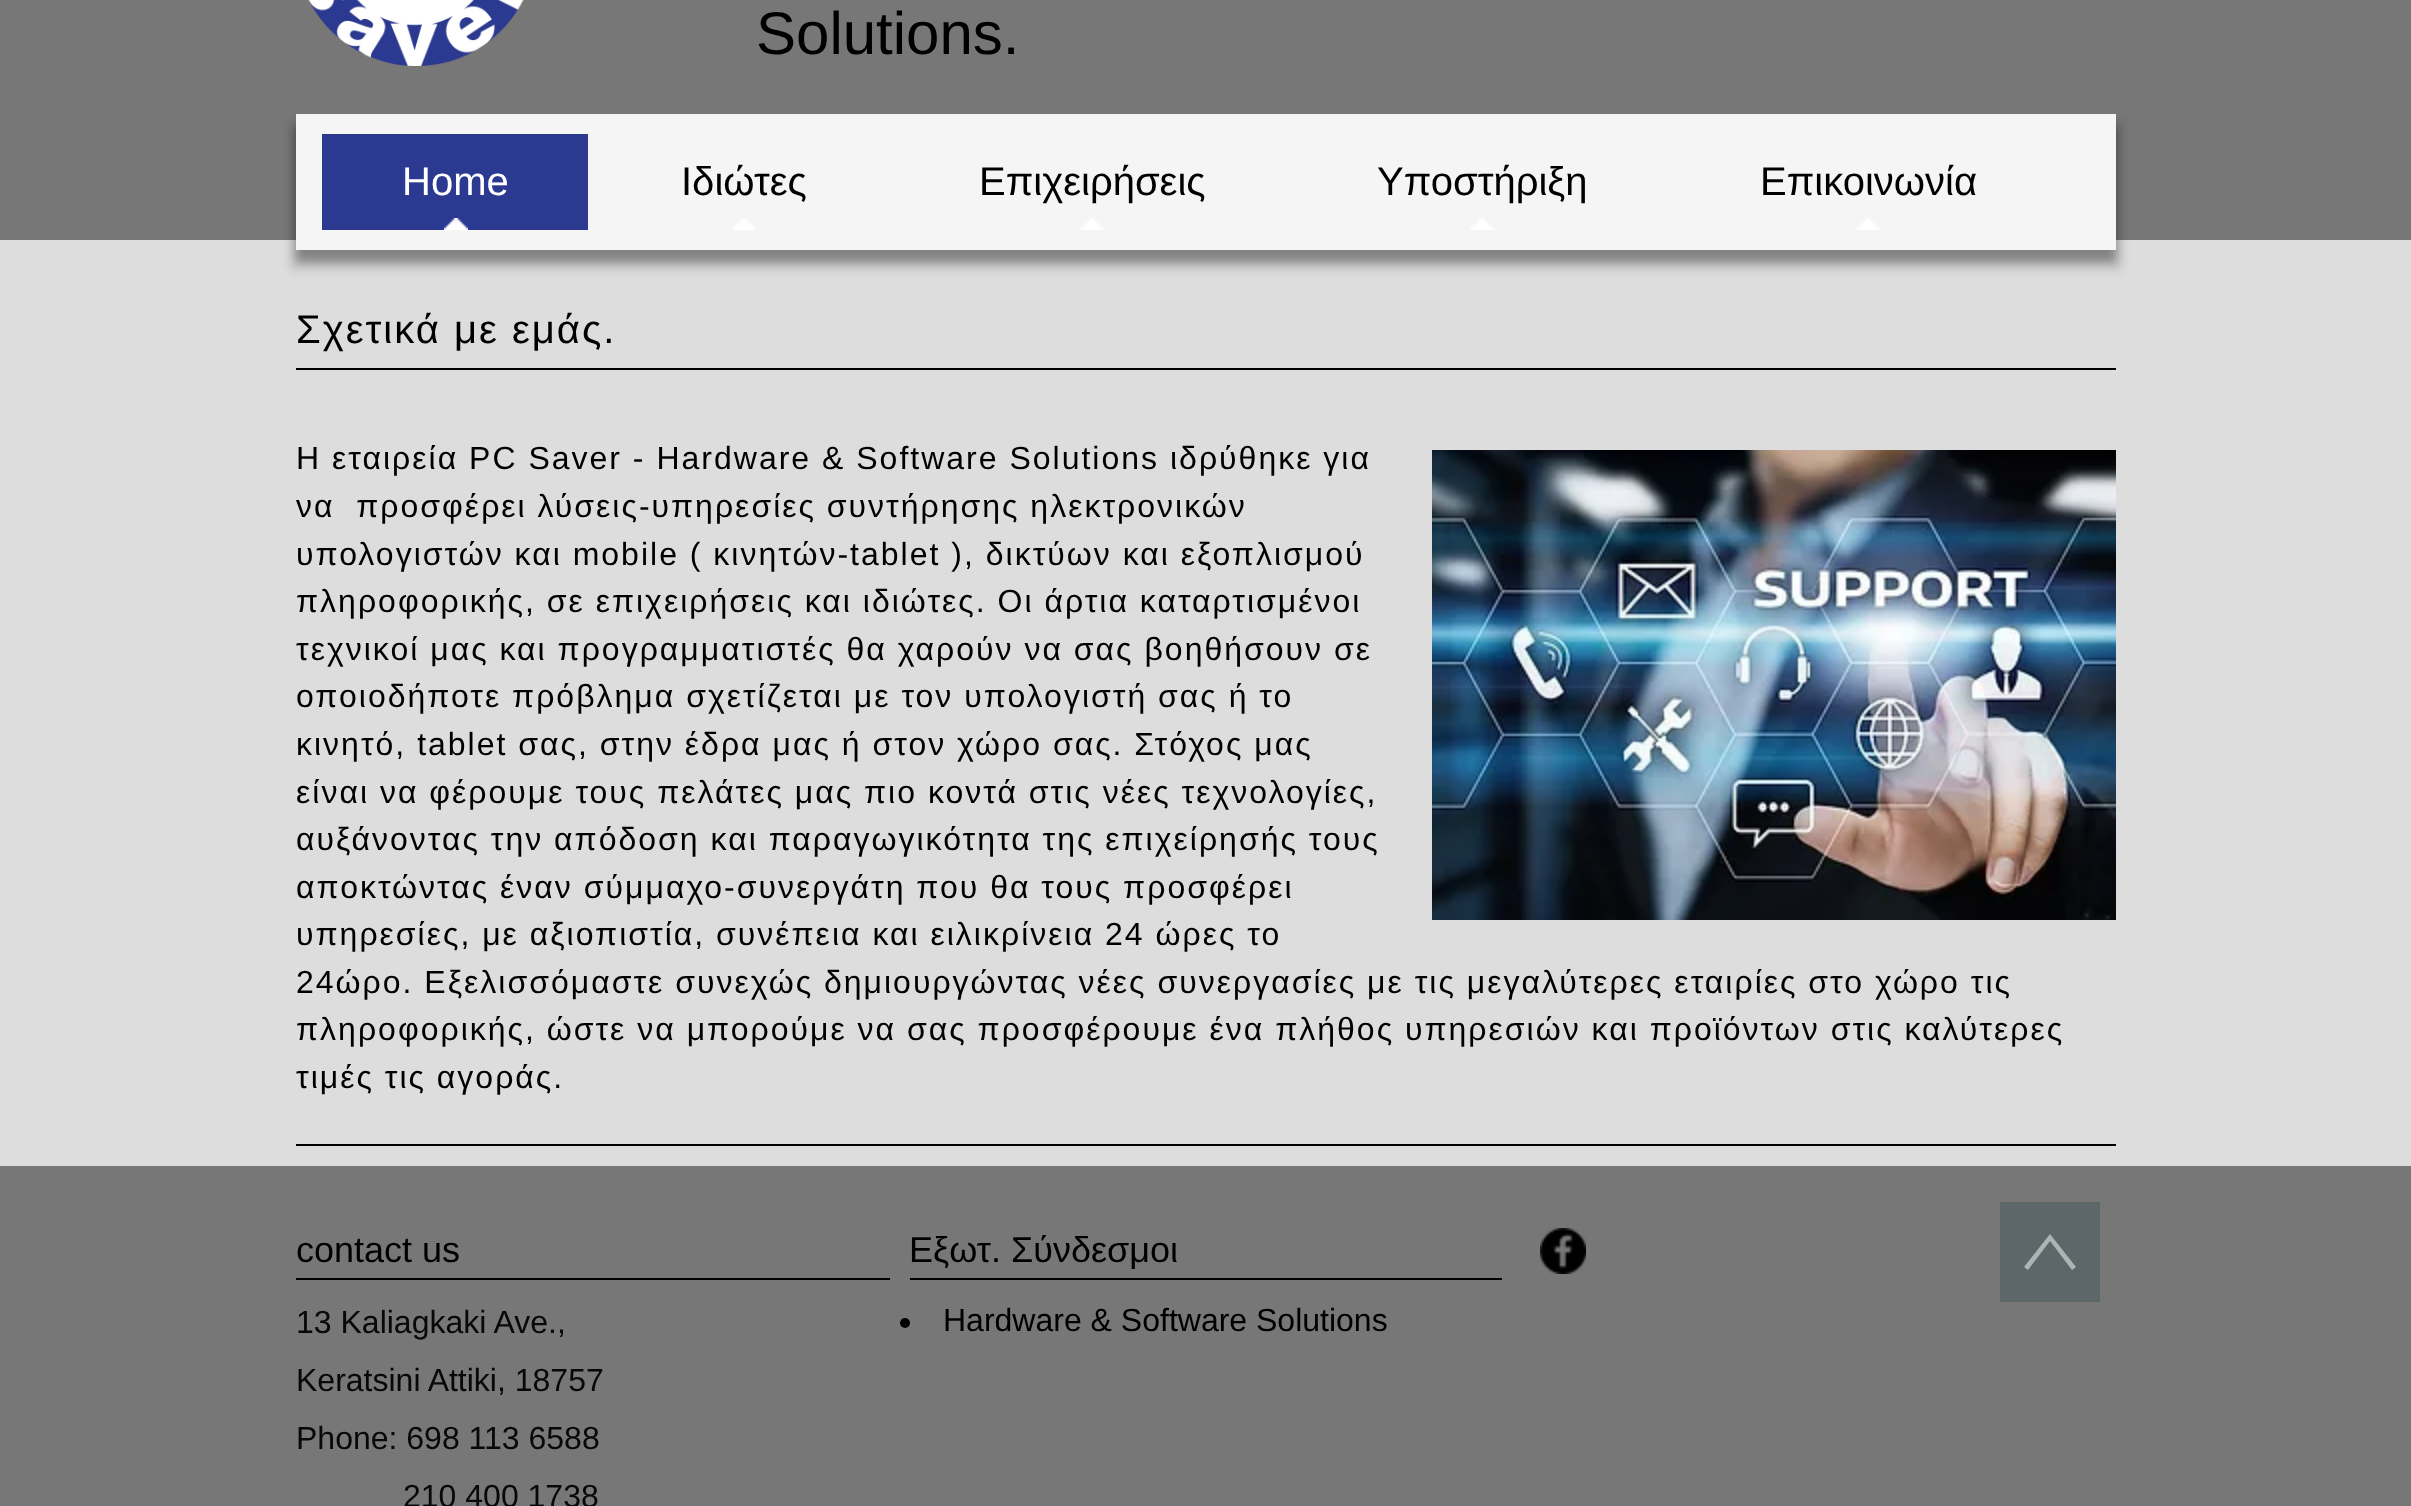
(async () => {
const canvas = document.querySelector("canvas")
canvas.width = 2411
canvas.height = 1506
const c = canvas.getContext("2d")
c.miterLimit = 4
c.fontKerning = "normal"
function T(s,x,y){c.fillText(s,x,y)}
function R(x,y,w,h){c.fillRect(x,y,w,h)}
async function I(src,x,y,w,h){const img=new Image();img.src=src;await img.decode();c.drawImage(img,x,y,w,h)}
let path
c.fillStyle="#ddd"
R(0,0,2411,1506)
c.fillStyle="#777"
R(0,0,2411,240)
await I("1.png",308,0,216,66)
c.font="60px Liberation Sans"
c.fillStyle="#000"
T("Solutions.",756,54)
c.fillStyle="#0000001c"
c.filter="blur(5px)"
c.beginPath()
c.rect(290,122,1832,148)
c.fill()
c.filter="none"
c.fillStyle="#00000054"
c.filter="blur(5px)"
c.beginPath()
c.rect(296,126,1820,136)
c.fill()
c.filter="none"
c.fillStyle="#f5f5f5"
R(296,114,1820,136)
c.fillStyle="#2b3991"
R(322,134,266,96)
c.font="40px Liberation Sans"
c.fillStyle="#fff"
T("Home",402,195)
await I("2.png",444,218,24,12)
c.fillStyle="#000"
T("Ιδιώτες",681,195)
await I("3.png",732,218,24,12)
T("Επιχειρήσεις",979,195)
await I("3.png",1080,218,24,12)
T("Υποστήριξη",1377,195)
await I("3.png",1470,218,24,12)
T("Επικοινωνία",1760,195)
await I("3.png",1856,218,24,12)
R(296,368,1820,2)
c.letterSpacing="2px"
T("Σχετικά με εμάς.",296,343)
c.font="32px Liberation Sans"
T("Η εταιρεία PC Saver - Hardware & Software Solutions ιδρύθηκε για",296,469)
T("να  προσφέρει λύσεις-υπηρεσίες συντήρησης ηλεκτρονικών",296,517)
T("υπολογιστών και mobile ( κινητών-tablet ), δικτύων και εξοπλισμού",296,565)
T("πληροφορικής, σε επιχειρήσεις και ιδιώτες. Οι άρτια καταρτισμένοι",296,612)
T("τεχνικοί μας και προγραμματιστές θα χαρούν να σας βοηθήσουν σε",296,660)
T("οποιοδήποτε πρόβλημα σχετίζεται με τον υπολογιστή σας ή το",296,707)
T("κινητό, tablet σας, στην έδρα μας ή στον χώρο σας. Στόχος μας",296,755)
T("είναι να φέρουμε τους πελάτες μας πιο κοντά στις νέες τεχνολογίες,",296,803)
T("αυξάνοντας την απόδοση και παραγωγικότητα της επιχείρησής τους",296,850)
T("αποκτώντας έναν σύμμαχο-συνεργάτη που θα τους προσφέρει",296,898)
T("υπηρεσίες, με αξιοπιστία, συνέπεια και ειλικρίνεια 24 ώρες το",296,945)
T("24ώρο. Εξελισσόμαστε συνεχώς δημιουργώντας νέες συνεργασίες με τις μεγαλύτερες εταιρίες στο χώρο τις",296,993)
T("πληροφορικής, ώστε να μπορούμε να σας προσφέρουμε ένα πλήθος υπηρεσιών και προϊόντων στις καλύτερες",296,1040)
T("τιμές τις αγοράς.",296,1088)
await I("4.png",1432,450,684,470)
R(296,1144,1820,2)
c.fillStyle="#777"
R(0,1166,2411,340)
c.fillStyle="#000"
R(296,1278,594,2)
c.letterSpacing="0px"
c.font="36px Liberation Sans"
T("contact us",296,1262)
c.font="32px Liberation Sans"
c.fillStyle="#080808"
T("13 Kaliagkaki Ave.,",296,1333)
T("Keratsini Attiki, 18757",296,1391)
T("Phone: 698 113 6588",296,1449)
T("210 400 1738",403,1507)
c.fillStyle="#000"
R(910,1278,592,2)
c.font="36px Liberation Sans"
T("Εξωτ. Σύνδεσμοι",909,1262)
c.beginPath()
c.arc(905,1323,5,0,7)
c.fill()
c.font="32px Liberation Sans"
T("Hardware & Software Solutions",943,1331)
await I("5.png",1540,1228,46,46)
c.fillStyle="#5d6669"
R(2000,1202,100,100)
c.fillStyle="#aeb3b4"
path = new Path2D("M2050 1234l26 33l-4 3l-22-29l-22 29l-4-3z")
c.fill(path)
})()
